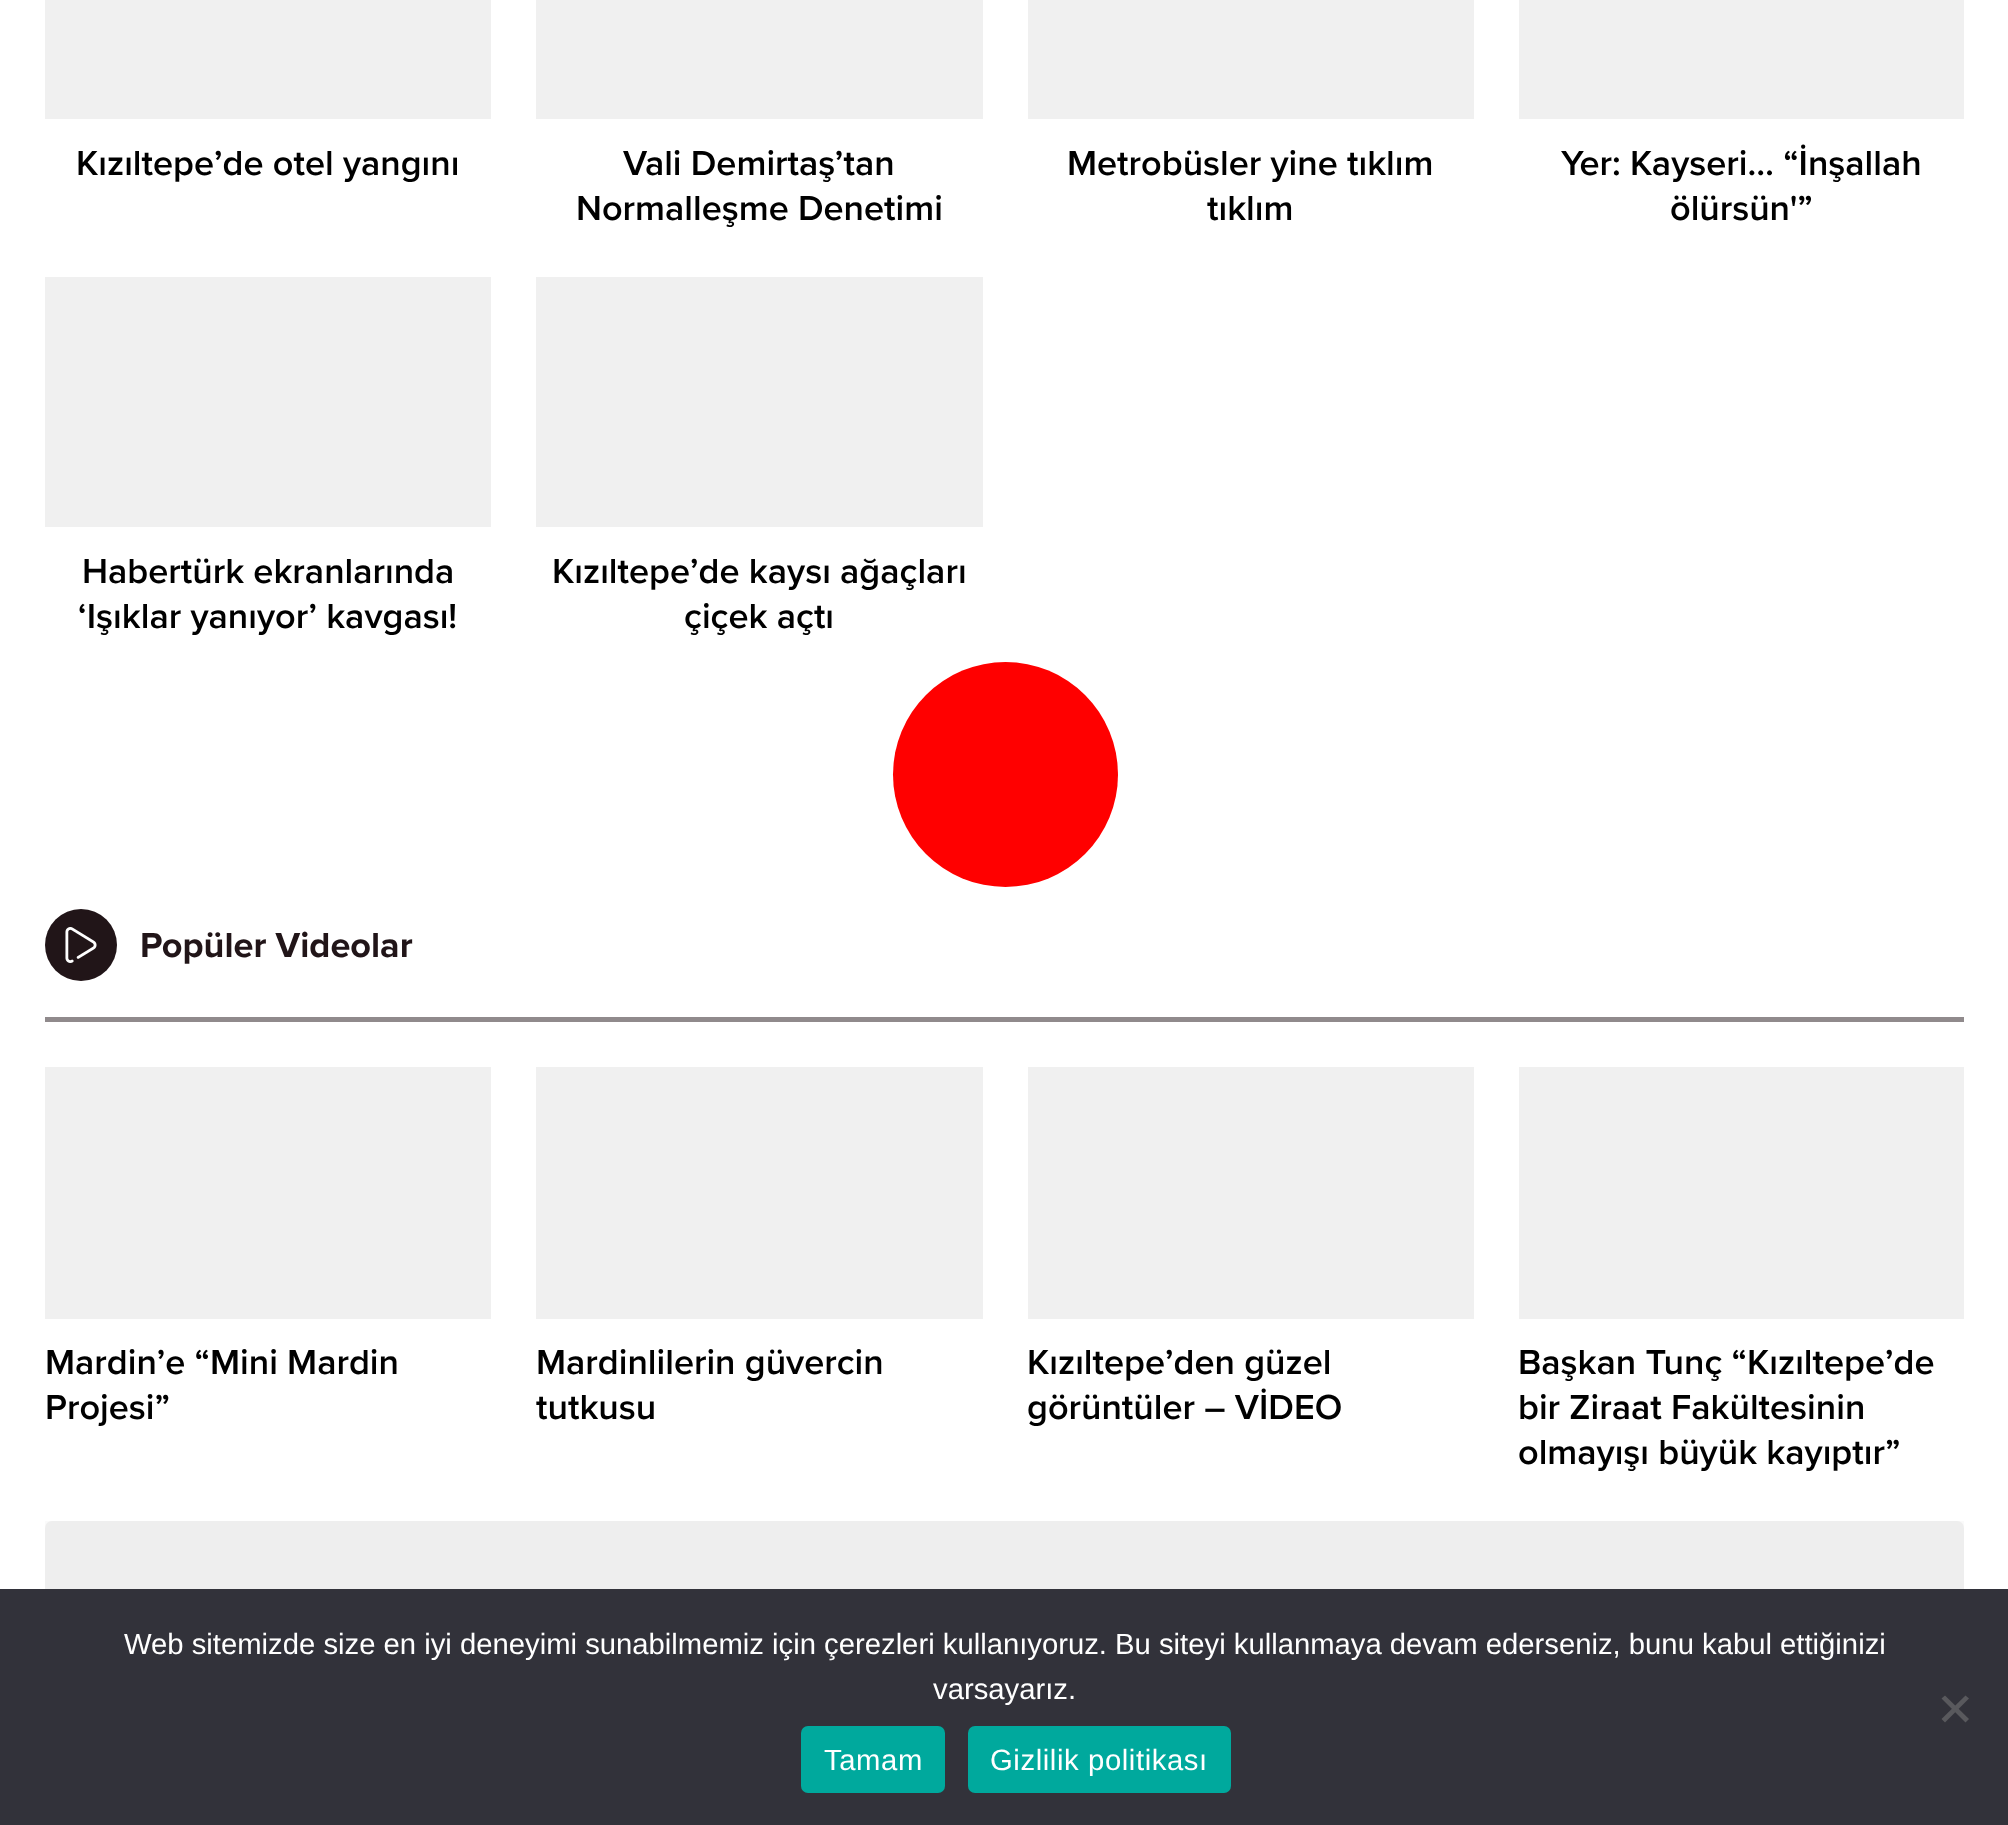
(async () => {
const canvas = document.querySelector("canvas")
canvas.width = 2008
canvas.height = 1825
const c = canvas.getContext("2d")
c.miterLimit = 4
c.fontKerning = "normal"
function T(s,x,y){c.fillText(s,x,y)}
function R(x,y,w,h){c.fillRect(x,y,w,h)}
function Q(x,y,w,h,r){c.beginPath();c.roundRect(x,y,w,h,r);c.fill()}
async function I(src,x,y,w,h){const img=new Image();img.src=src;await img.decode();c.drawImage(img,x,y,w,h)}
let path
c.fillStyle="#fff"
R(0,0,2008,1825)
c.fillStyle="#f0f0f0"
R(45,0,446,119)
c.font="600 36px Proxima Nova"
c.fillStyle="#000"
T("Kızıltepe’de otel yangını",76,175)
c.fillStyle="#f0f0f0"
R(536,0,447,119)
c.fillStyle="#000"
T("Vali Demirtaş’tan",623,175)
T("Normalleşme Denetimi",576,220)
c.fillStyle="#f0f0f0"
R(1028,0,446,119)
c.fillStyle="#000"
T("Metrobüsler yine tıklım",1067,175)
T("tıklım",1207,220)
c.fillStyle="#f0f0f0"
R(1519,0,445,119)
c.fillStyle="#000"
T("Yer: Kayseri… “İnşallah",1561,175)
T("ölürsün'”",1670,220)
c.fillStyle="#f0f0f0"
R(45,277,446,250)
c.fillStyle="#000"
T("Habertürk ekranlarında",82,583)
T("‘Işıklar yanıyor’ kavgası!",78,628)
c.fillStyle="#f0f0f0"
R(536,277,447,250)
c.fillStyle="#000"
T("Kızıltepe’de kaysı ağaçları",552,583)
T("çiçek açtı",684,628)
c.fillStyle="#f00"
c.beginPath()
c.arc(1005.5,774.5,112.5,0,7)
c.fill()
c.fillStyle="#211518"
c.beginPath()
c.arc(81,945,36,0,7)
c.fill()
await I("1.png",65,927,32,36)
c.font="bold 36px Proxima Nova"
T("Popüler Videolar",140,957)
c.fillStyle="#908a8c"
R(45,1017,1919,5)
c.fillStyle="#f0f0f0"
R(45,1067,446,252)
c.font="600 36px Proxima Nova"
c.fillStyle="#000"
T("Mardin’e “Mini Mardin",45,1374)
T("Projesi”",45,1419)
c.fillStyle="#f0f0f0"
R(536,1067,447,252)
c.fillStyle="#000"
T("Mardinlilerin güvercin",536,1374)
T("tutkusu",536,1419)
c.fillStyle="#f0f0f0"
R(1028,1067,446,252)
c.fillStyle="#000"
T("Kızıltepe’den güzel",1027,1374)
T("görüntüler – VİDEO",1027,1419)
c.fillStyle="#f0f0f0"
R(1519,1067,445,252)
c.fillStyle="#000"
T("Başkan Tunç “Kızıltepe’de",1518,1374)
T("bir Ziraat Fakültesinin",1518,1419)
T("olmayışı büyük kayıptır”",1518,1464)
c.fillStyle="#fafafa"
R(45,1521,1919,7)
c.fillStyle="#eee"
Q(45,1521,1919,212,7)
c.fillStyle="#32323a"
R(0,1589,2008,236)
c.font="29.25px Liberation Sans"
c.fillStyle="#fff"
T("Web sitemizde size en iyi deneyimi sunabilmemiz için çerezleri kullanıyoruz. Bu siteyi kullanmaya devam ederseniz, bunu kabul ettiğinizi",124,1654)
T("varsayarız.",933,1699)
c.fillStyle="#59595d"
path = new Path2D("M1965.5 1695.5l3.5 3l-24 24l-3.5-3.5z")
c.fill(path)
path = new Path2D("M1941.5 1698.5l3.5-3l24 23.5l-3.5 3.5z")
c.fill(path)
c.fillStyle="#00a99d"
Q(801,1726,144,67,7)
c.letterSpacing="0.6px"
c.fillStyle="#fff"
T("Tamam",824,1770)
c.fillStyle="#00a99d"
Q(968,1726,263,67,7)
c.fillStyle="#fff"
T("Gizlilik politikası",990,1770)
})()
